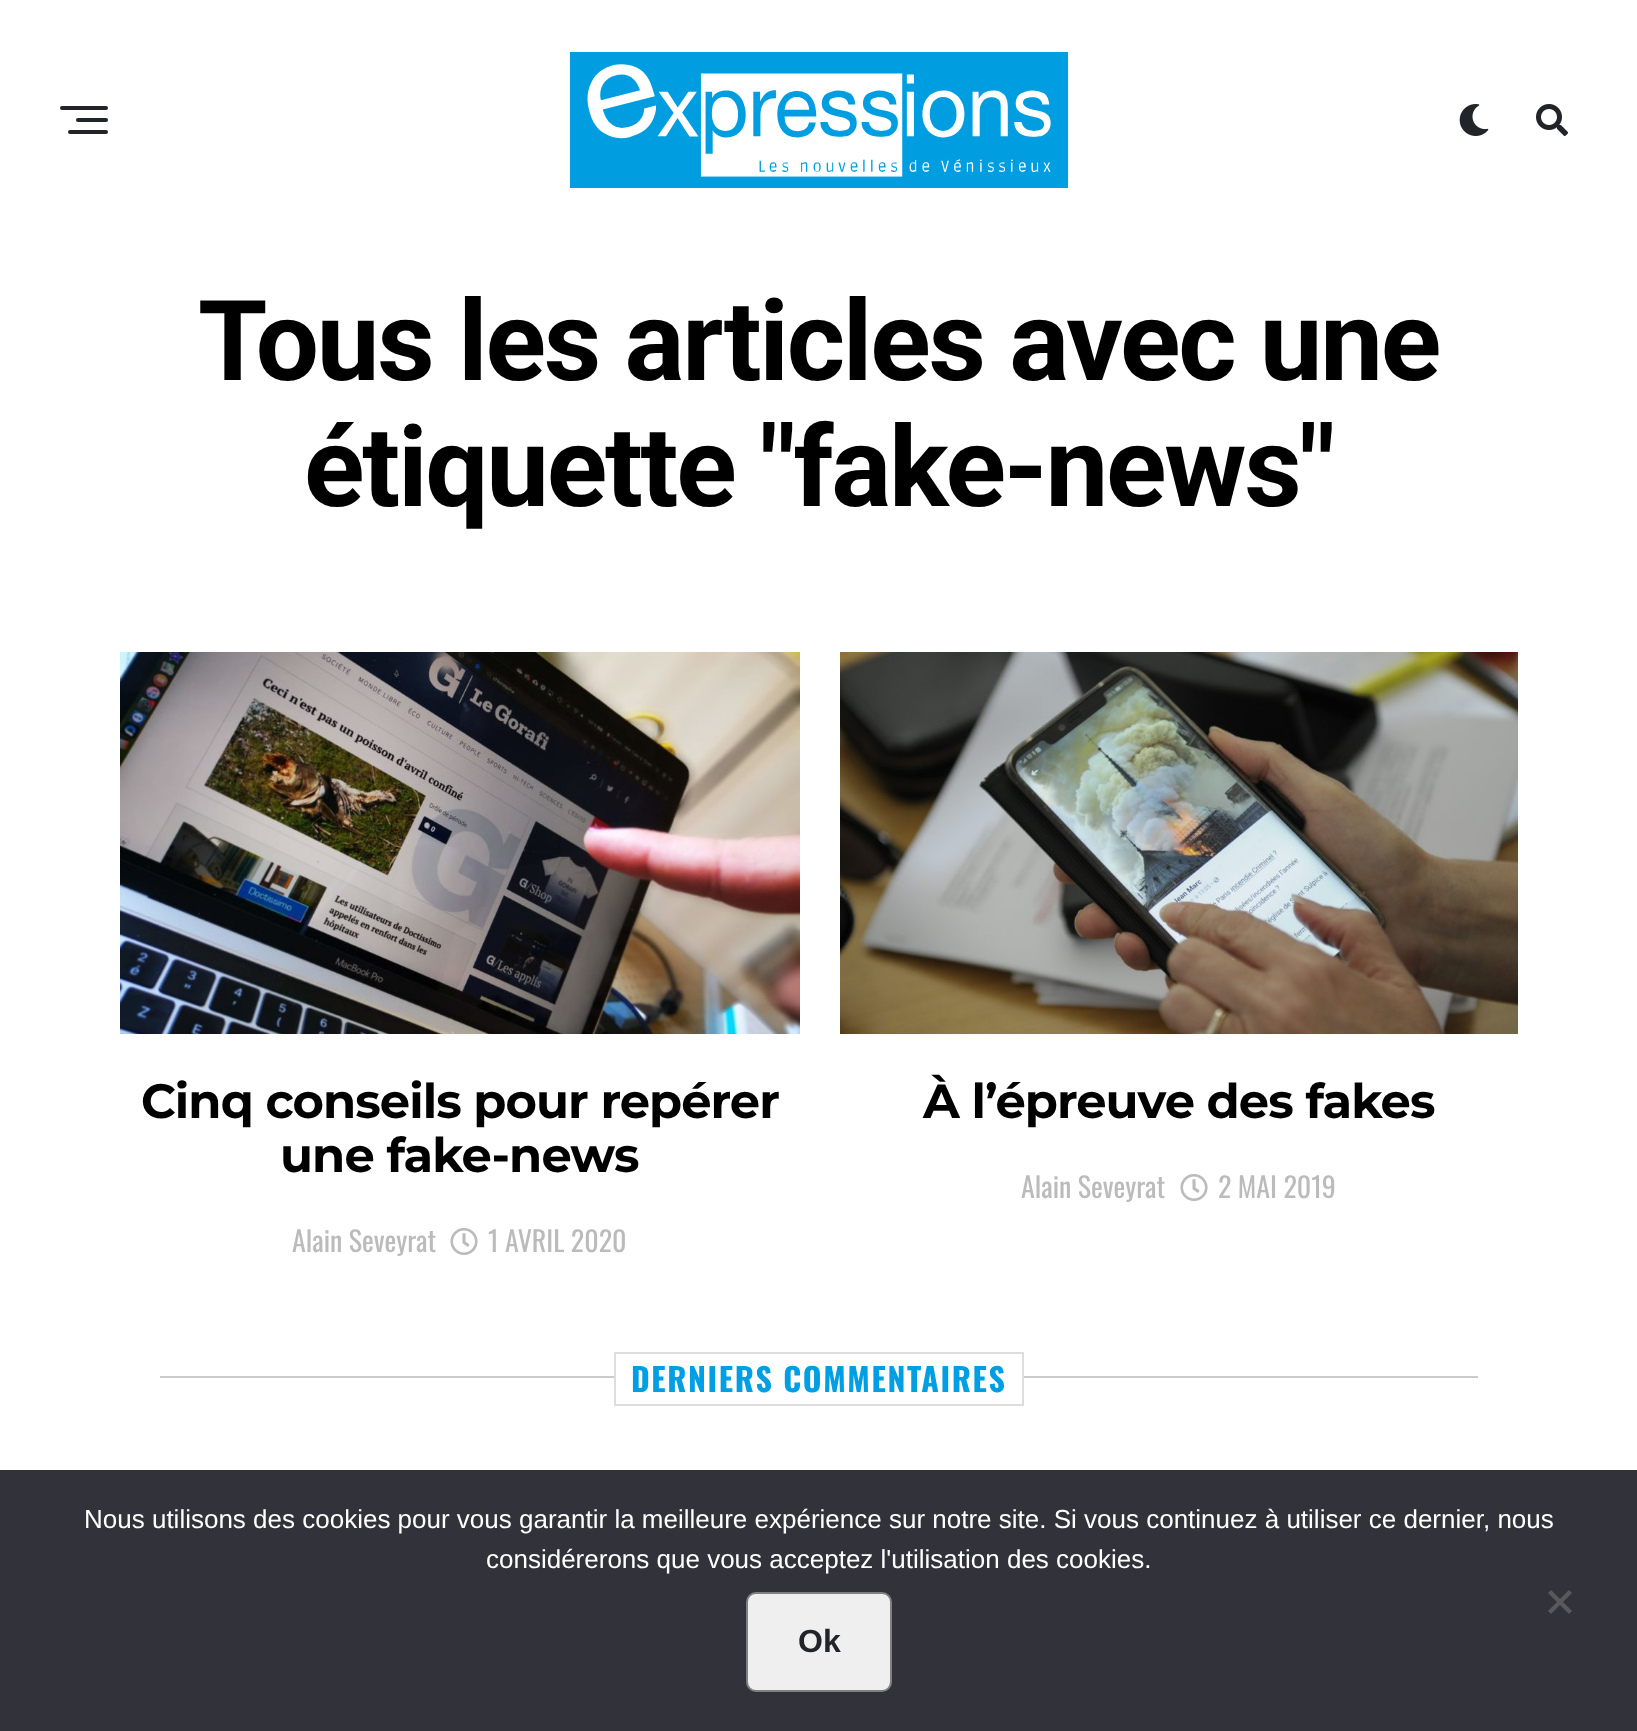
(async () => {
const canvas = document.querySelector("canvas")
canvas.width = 1637
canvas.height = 1731
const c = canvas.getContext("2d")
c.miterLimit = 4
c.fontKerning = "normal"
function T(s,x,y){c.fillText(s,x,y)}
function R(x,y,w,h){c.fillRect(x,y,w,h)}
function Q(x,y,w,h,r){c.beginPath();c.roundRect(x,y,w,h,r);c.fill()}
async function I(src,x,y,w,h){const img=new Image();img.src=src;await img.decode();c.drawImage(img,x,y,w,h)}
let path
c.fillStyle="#fff"
R(0,0,1637,1731)
c.fillStyle="#212529"
Q(60,106,48,4,2)
Q(76,118,32,4,2)
Q(68,130,40,4,2)
await I("1.png",570,52,499,136)
await I("2.png",1459,104,30,32)
await I("3.png",1536,104,32,32)
c.letterSpacing="-2.25px"
c.font="bold 112px Roboto"
c.fillStyle="#000"
T("Tous les articles avec une",198,380)
T("étiquette \"fake-news\"",304,506)
await I("4.png",120,652,680,382)
c.letterSpacing="-0.95px"
c.font="bold 48px Montserrat"
T("Cinq conseils pour repérer",141,1118)
T("une fake-news",280,1172)
c.letterSpacing="0px"
c.font="28px Oswald"
c.fillStyle="#bbb"
T("Alain Seveyrat",292,1252)
await I("5.png",450,1228,28,27)
T("1 AVRIL 2020",488,1252)
await I("6.png",840,652,678,382)
c.letterSpacing="-0.95px"
c.font="bold 48px Montserrat"
c.fillStyle="#000"
T("À l’épreuve des fakes",923,1118)
c.letterSpacing="0px"
c.font="28px Oswald"
c.fillStyle="#bbb"
T("Alain Seveyrat",1021,1198)
await I("5.png",1180,1174,28,27)
T("2 MAI 2019",1218,1198)
c.fillStyle="#ccc"
R(160,1376,1318,2)
c.fillStyle="#fff"
R(616,1376,406,2)
c.strokeStyle="#ddd"
c.lineWidth=2
c.strokeRect(615,1353,408,52)
c.letterSpacing="1.6px"
c.font="bold 32px Oswald"
c.fillStyle="#009fe3"
T("DERNIERS COMMENTAIRES",631,1392)
c.fillStyle="#32323a"
R(0,1470,1637,261)
c.letterSpacing="0px"
c.font="26px Liberation Sans"
c.fillStyle="#fff"
T("Nous utilisons des cookies pour vous garantir la meilleure expérience sur notre site. Si vous continuez à utiliser ce dernier, nous",84,1528)
T("considérerons que vous acceptez l'utilisation des cookies.",486,1568)
c.fillStyle="#59595d"
path = new Path2D("M1569 1590l3 3l-21 21l-3-3z")
c.fill(path)
path = new Path2D("M1548 1593l3-3l21 21l-3 3z")
c.fill(path)
c.fillStyle="#efefef"
c.beginPath()
c.roundRect(747,1593,144,98,9)
c.fill()
c.strokeStyle="#808080"
c.stroke()
c.font="bold 32px Liberation Sans"
c.fillStyle="#212529"
T("Ok",798,1652)
})()
